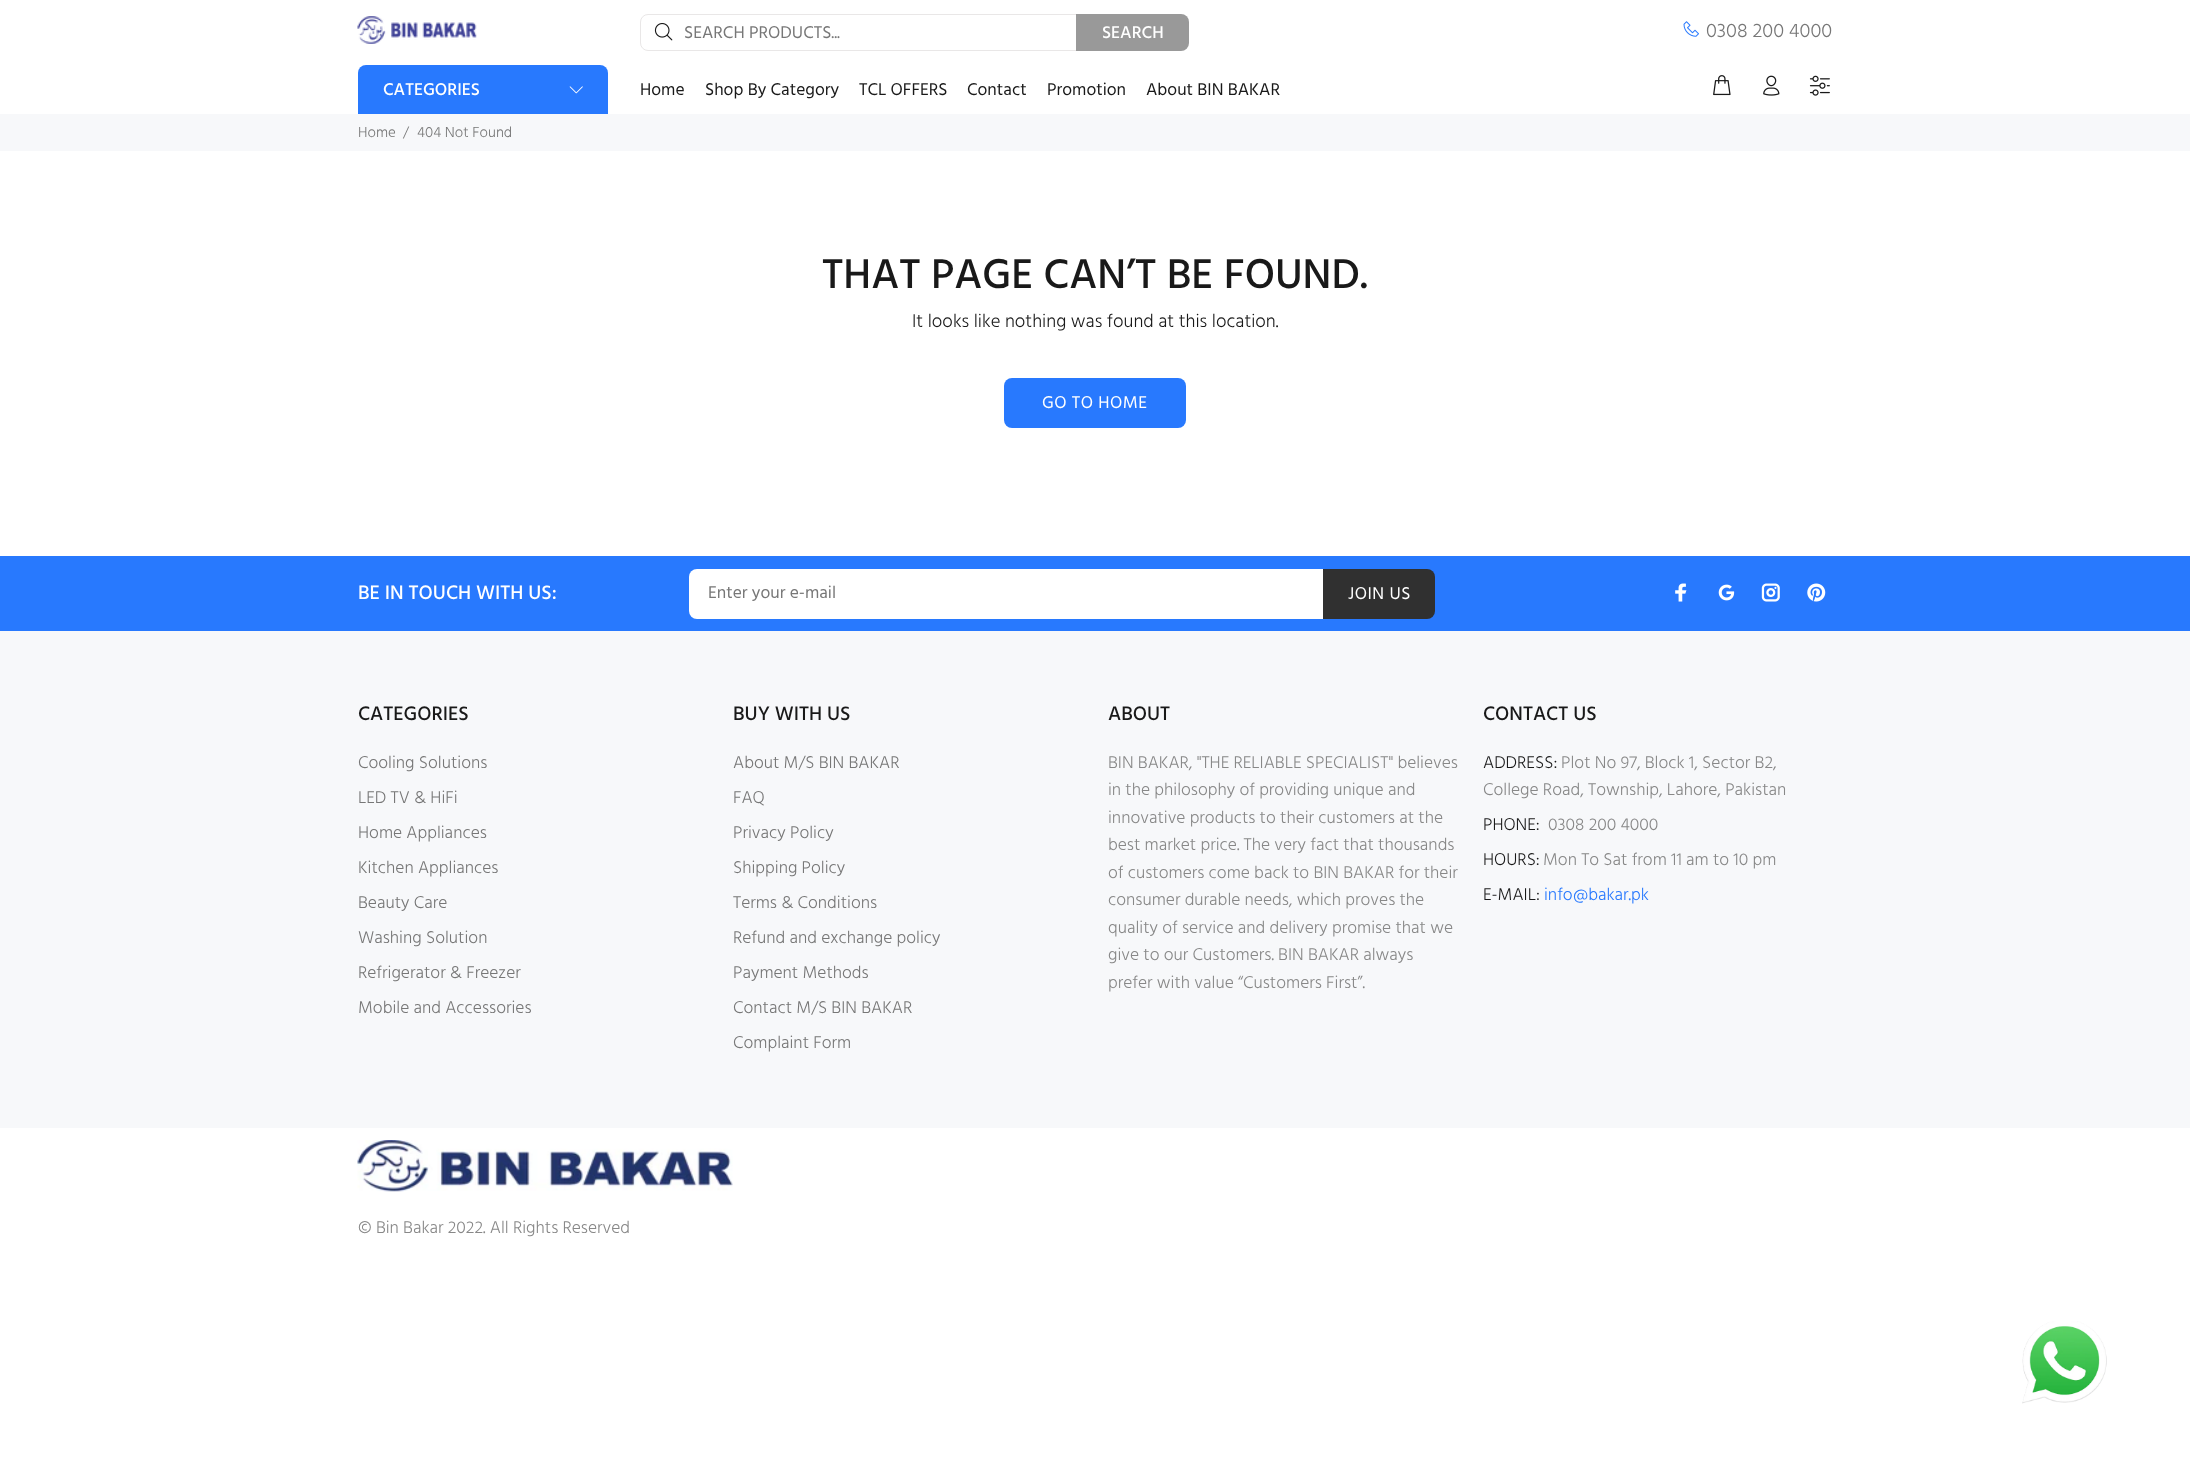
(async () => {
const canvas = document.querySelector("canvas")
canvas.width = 2190
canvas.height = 1460
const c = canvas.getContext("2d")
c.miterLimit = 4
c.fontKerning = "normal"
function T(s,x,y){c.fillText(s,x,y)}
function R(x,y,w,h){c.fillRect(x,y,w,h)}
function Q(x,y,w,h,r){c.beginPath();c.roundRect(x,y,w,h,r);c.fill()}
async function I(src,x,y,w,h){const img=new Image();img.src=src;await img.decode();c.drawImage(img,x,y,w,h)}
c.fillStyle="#fff"
R(0,0,2190,1460)
await I("1.png",357,16,120,28)
c.beginPath()
c.roundRect(640.5,14.5,437,36,[7.5,0,0,7.5])
c.strokeStyle="#e9e7e7"
c.stroke()
await I("2.png",654,23,19,18)
c.font="17.5px Hind"
c.fillStyle="#777"
T("SEARCH PRODUCTS...",684,38)
c.fillStyle="#999"
c.beginPath()
c.roundRect(1076,14,113,37,[0,8,8,0])
c.fill()
c.font="500 17.5px Hind"
c.fillStyle="#fff"
T("SEARCH",1102,38)
await I("3.png",1683,21,16,16)
c.font="300 20px Hind"
c.fillStyle="#777"
T("0308 200 4000",1706,37)
c.fillStyle="#2879fe"
c.beginPath()
c.roundRect(358,65,250,49,[8,8,0,0])
c.fill()
c.font="500 17.5px Hind"
c.fillStyle="#fff"
T("CATEGORIES",383,95)
await I("4.png",569,86,14,8)
c.font="17.5px Hind"
c.fillStyle="#191919"
T("Home",640,95)
T("Shop By Category",705,95)
T("TCL OFFERS",859,95)
T("Contact",967,95)
T("Promotion",1047,95)
T("About BIN BAKAR",1146,95)
await I("5.png",1713,75,18,21)
await I("6.png",1763,75,17,21)
await I("7.png",1809,75,21,21)
c.fillStyle="#f7f8fa"
R(0,114,2190,37)
c.font="300 15px Hind"
c.fillStyle="#777"
T("Home",358,137)
T("/",403,137)
T("404 Not Found",417,137)
c.font="500 42.5px Hind"
c.fillStyle="#191919"
T("THAT PAGE CAN’T BE FOUND.",822,288)
c.font="300 18.75px Hind"
T("It looks like nothing was found at this location.",912,327)
c.fillStyle="#2879fe"
Q(1004,378,182,50,8)
c.letterSpacing="0.5px"
c.font="17.5px Hind"
c.fillStyle="#fff"
T("GO TO HOME",1042,408)
c.fillStyle="#f7f8fa"
R(0,631,2190,497)
c.fillStyle="#2879fe"
R(0,556,2190,75)
c.letterSpacing="0px"
c.font="500 20px Hind"
c.fillStyle="#fff"
T("BE IN TOUCH WITH US:",358,599)
c.beginPath()
c.roundRect(689,569,634,50,[8,0,0,8])
c.fill()
c.font="17.5px Hind"
c.fillStyle="#777"
T("Enter your e-mail",708,598)
c.fillStyle="#303030"
c.beginPath()
c.roundRect(1323,569,112,50,[0,8,8,0])
c.fill()
c.letterSpacing="0.5px"
c.fillStyle="#fff"
T("JOIN US",1348,599)
await I("8.png",1675,583,12,19)
await I("9.png",1718,584,17,17)
await I("10.png",1761,583,19,19)
await I("11.png",1807,583,19,19)
c.letterSpacing="0px"
c.font="500 20px Hind"
c.fillStyle="#191919"
T("CATEGORIES",358,720)
c.font="300 17.5px Hind"
c.fillStyle="#777"
T("Cooling Solutions",358,768)
T("LED TV & HiFi",358,803)
T("Home Appliances",358,838)
T("Kitchen Appliances",358,873)
T("Beauty Care",358,908)
T("Washing Solution",358,943)
T("Refrigerator & Freezer",358,978)
T("Mobile and Accessories",358,1013)
c.font="500 20px Hind"
c.fillStyle="#191919"
T("BUY WITH US",733,720)
c.font="300 17.5px Hind"
c.fillStyle="#777"
T("About M/S BIN BAKAR",733,768)
T("FAQ",733,803)
T("Privacy Policy",733,838)
T("Shipping Policy",733,873)
T("Terms & Conditions",733,908)
T("Refund and exchange policy",733,943)
T("Payment Methods",733,978)
T("Contact M/S BIN BAKAR",733,1013)
T("Complaint Form",733,1048)
c.font="500 20px Hind"
c.fillStyle="#191919"
T("ABOUT",1108,720)
c.font="300 17.5px Hind"
c.fillStyle="#888"
T("BIN BAKAR, \"THE RELIABLE SPECIALIST\" believes",1108,768)
T("in the philosophy of providing unique and",1108,795)
T("innovative products to their customers at the",1108,823)
T("best market price. The very fact that thousands",1108,850)
T("of customers come back to BIN BAKAR for their",1108,878)
T("consumer durable needs, which proves the",1108,905)
T("quality of service and delivery promise that we",1108,933)
T("give to our Customers. BIN BAKAR always",1108,960)
T("prefer with value “Customers First”.",1108,988)
c.font="500 20px Hind"
c.fillStyle="#191919"
T("CONTACT US",1483,720)
c.font="300 17.5px Hind"
T("ADDRESS:",1483,768)
c.fillStyle="#888"
T("Plot No 97, Block 1, Sector B2,",1561,768)
T("College Road, Township, Lahore, Pakistan",1483,795)
c.fillStyle="#191919"
T("PHONE:",1483,830)
c.fillStyle="#888"
T("0308 200 4000",1548,830)
c.fillStyle="#191919"
T("HOURS:",1483,865)
c.fillStyle="#888"
T("Mon To Sat from 11 am to 10 pm",1543,865)
c.fillStyle="#191919"
T("E-MAIL:",1483,900)
c.fillStyle="#2879fe"
T("info@bakar.pk",1544,900)
await I("12.png",357,1140,376,52)
c.fillStyle="#888"
T("© Bin Bakar 2022. All Rights Reserved",358,1233)
await I("13.png",2022,1321,85,83)
})()
